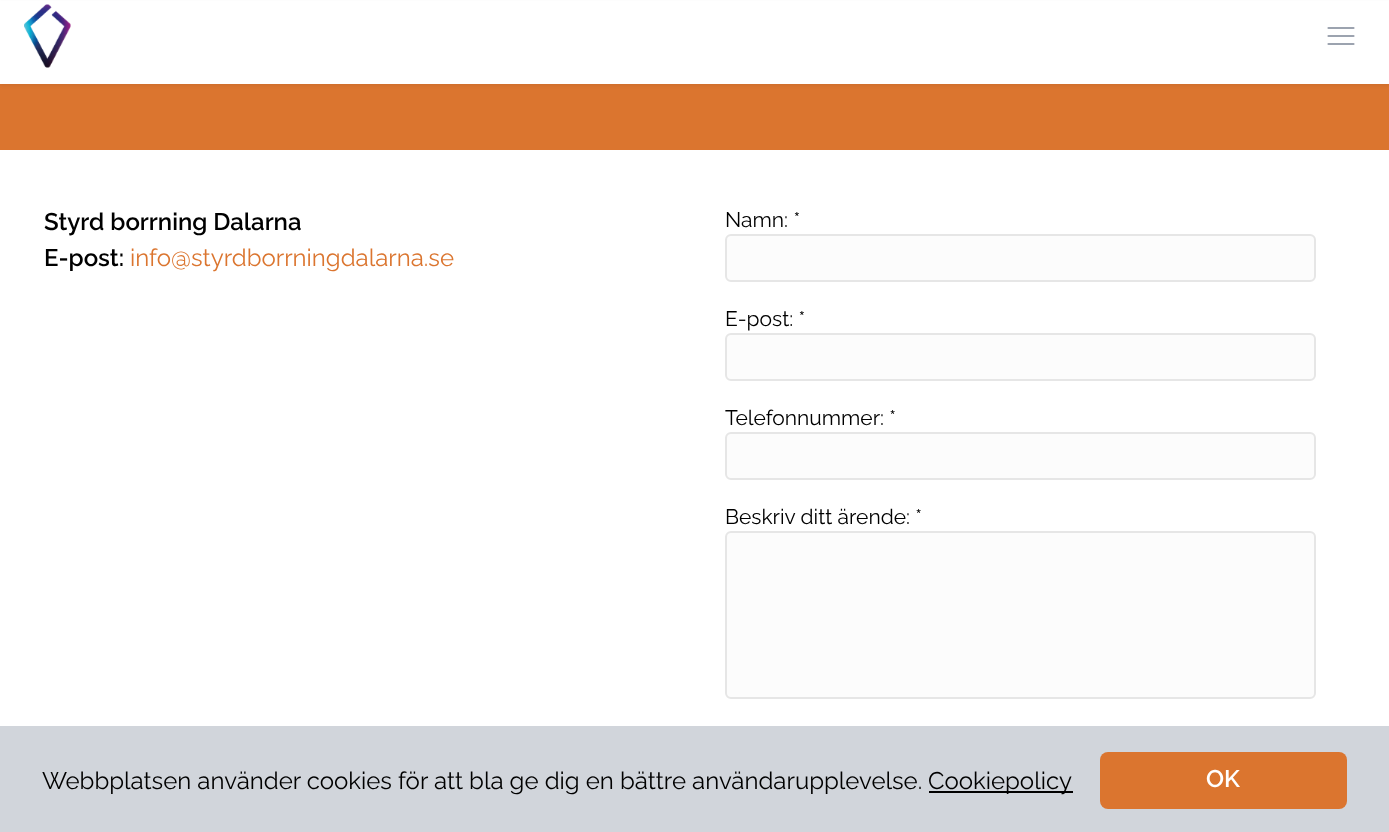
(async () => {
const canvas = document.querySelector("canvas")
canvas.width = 1389
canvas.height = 832
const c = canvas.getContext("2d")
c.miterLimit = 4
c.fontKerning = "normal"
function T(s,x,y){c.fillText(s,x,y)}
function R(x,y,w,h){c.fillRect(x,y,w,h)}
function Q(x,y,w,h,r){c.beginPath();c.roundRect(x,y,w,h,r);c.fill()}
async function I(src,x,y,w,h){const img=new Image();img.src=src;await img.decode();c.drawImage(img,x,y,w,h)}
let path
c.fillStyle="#fff"
R(0,0,1389,832)
c.fillStyle="#db752f"
R(0,84,1389,66)
c.fillStyle="#0000000d"
c.filter="blur(1.5px)"
c.beginPath()
c.rect(0,2,1389,84)
c.fill()
c.filter="none"
c.fillStyle="#fff"
R(0,1,1389,83)
await I("1.png",24,4,47,64)
path = new Path2D("M1328.5 28h25m-25 8h25m-25 8h25")
c.strokeStyle="#9ca3af"
c.lineWidth=2.2
c.lineCap="round"
c.lineJoin="round"
c.stroke(path)
c.font="600 24px Raleway"
c.fillStyle="#000"
T("Styrd borrning Dalarna",44,230)
T("E-post:",44,266)
c.font="24px Raleway"
c.fillStyle="#db752f"
T("info@styrdborrningdalarna.se",130,266)
c.font="21px Raleway"
c.fillStyle="#000"
T("Namn: *",725,227)
c.fillStyle="#fcfcfc"
c.beginPath()
c.roundRect(726,235,589,46,5)
c.fill()
c.strokeStyle="#e6e6e6"
c.lineWidth=2
c.lineJoin="miter"
c.stroke()
c.fillStyle="#000"
T("E-post: *",725,326)
c.fillStyle="#fcfcfc"
c.beginPath()
c.roundRect(726,334,589,46,5)
c.fill()
c.stroke()
c.fillStyle="#000"
T("Telefonnummer: *",725,425)
c.fillStyle="#fcfcfc"
c.beginPath()
c.roundRect(726,433,589,46,5)
c.fill()
c.stroke()
c.fillStyle="#000"
T("Beskriv ditt ärende: *",725,524)
c.fillStyle="#fcfcfc"
c.beginPath()
c.roundRect(726,532,589,166,5)
c.fill()
c.stroke()
c.fillStyle="#d1d5db"
R(0,726,1389,106)
c.font="24px Raleway"
c.fillStyle="#000"
T("Webbplatsen använder cookies för att bla ge dig en bättre användarupplevelse.",42,789)
R(929,791,144,2)
T("Cookiepolicy",928,789)
c.fillStyle="#db752f"
Q(1100,752,247,57,8)
c.font="600 24px Raleway"
c.fillStyle="#fff"
T("OK",1206,787)
})()
